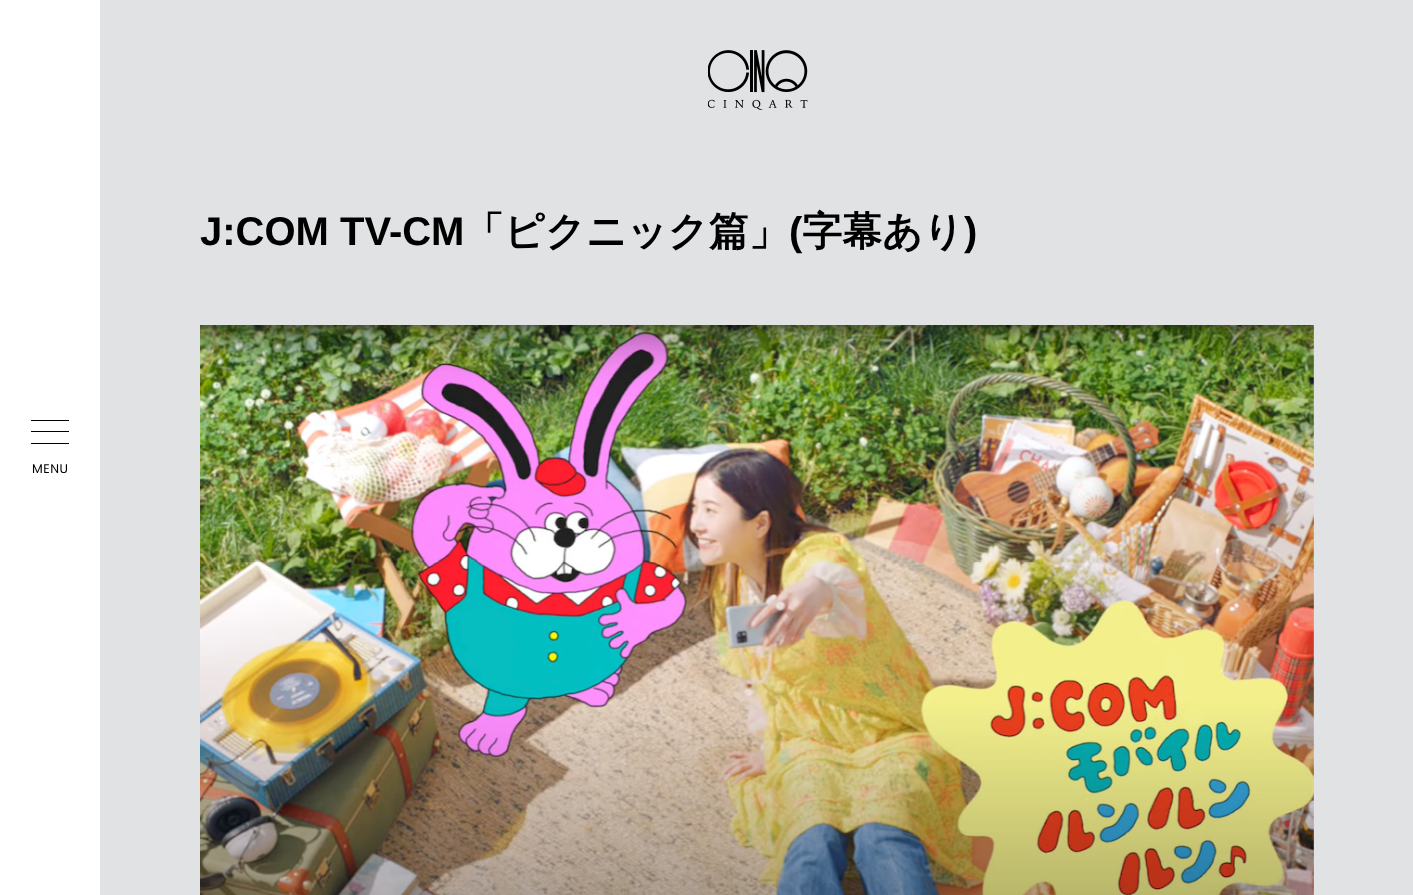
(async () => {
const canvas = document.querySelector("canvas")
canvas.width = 1413
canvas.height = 895
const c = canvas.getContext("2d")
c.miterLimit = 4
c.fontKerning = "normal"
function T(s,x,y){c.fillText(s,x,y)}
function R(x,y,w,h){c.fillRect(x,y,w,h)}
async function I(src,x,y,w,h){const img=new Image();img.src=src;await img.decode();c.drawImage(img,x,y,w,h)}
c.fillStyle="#e0e2e3"
R(0,0,1413,895)
c.font="bold 40px Liberation Sans"
c.fillStyle="#000"
T("J:COM TV-CM",200,245)
c.font="bold 40px WenQuanYi Zen Hei"
T("「ピクニック篇」",464,245)
c.font="bold 40px Liberation Sans"
T("(",789,245)
c.font="bold 40px WenQuanYi Zen Hei"
T("字幕あり",802,245)
c.font="bold 40px Liberation Sans"
T(")",964,245)
await I("1.png",200,325,1114,570)
c.fillStyle="#fff"
R(0,0,100,895)
await I("2.png",708,50,100,60)
c.fillStyle="#000"
R(31,420,38,1)
R(31,431,38,1)
R(31,443,38,1)
c.letterSpacing="0.5px"
c.font="12.5px Poppins"
T("MENU",32,473)
})()
